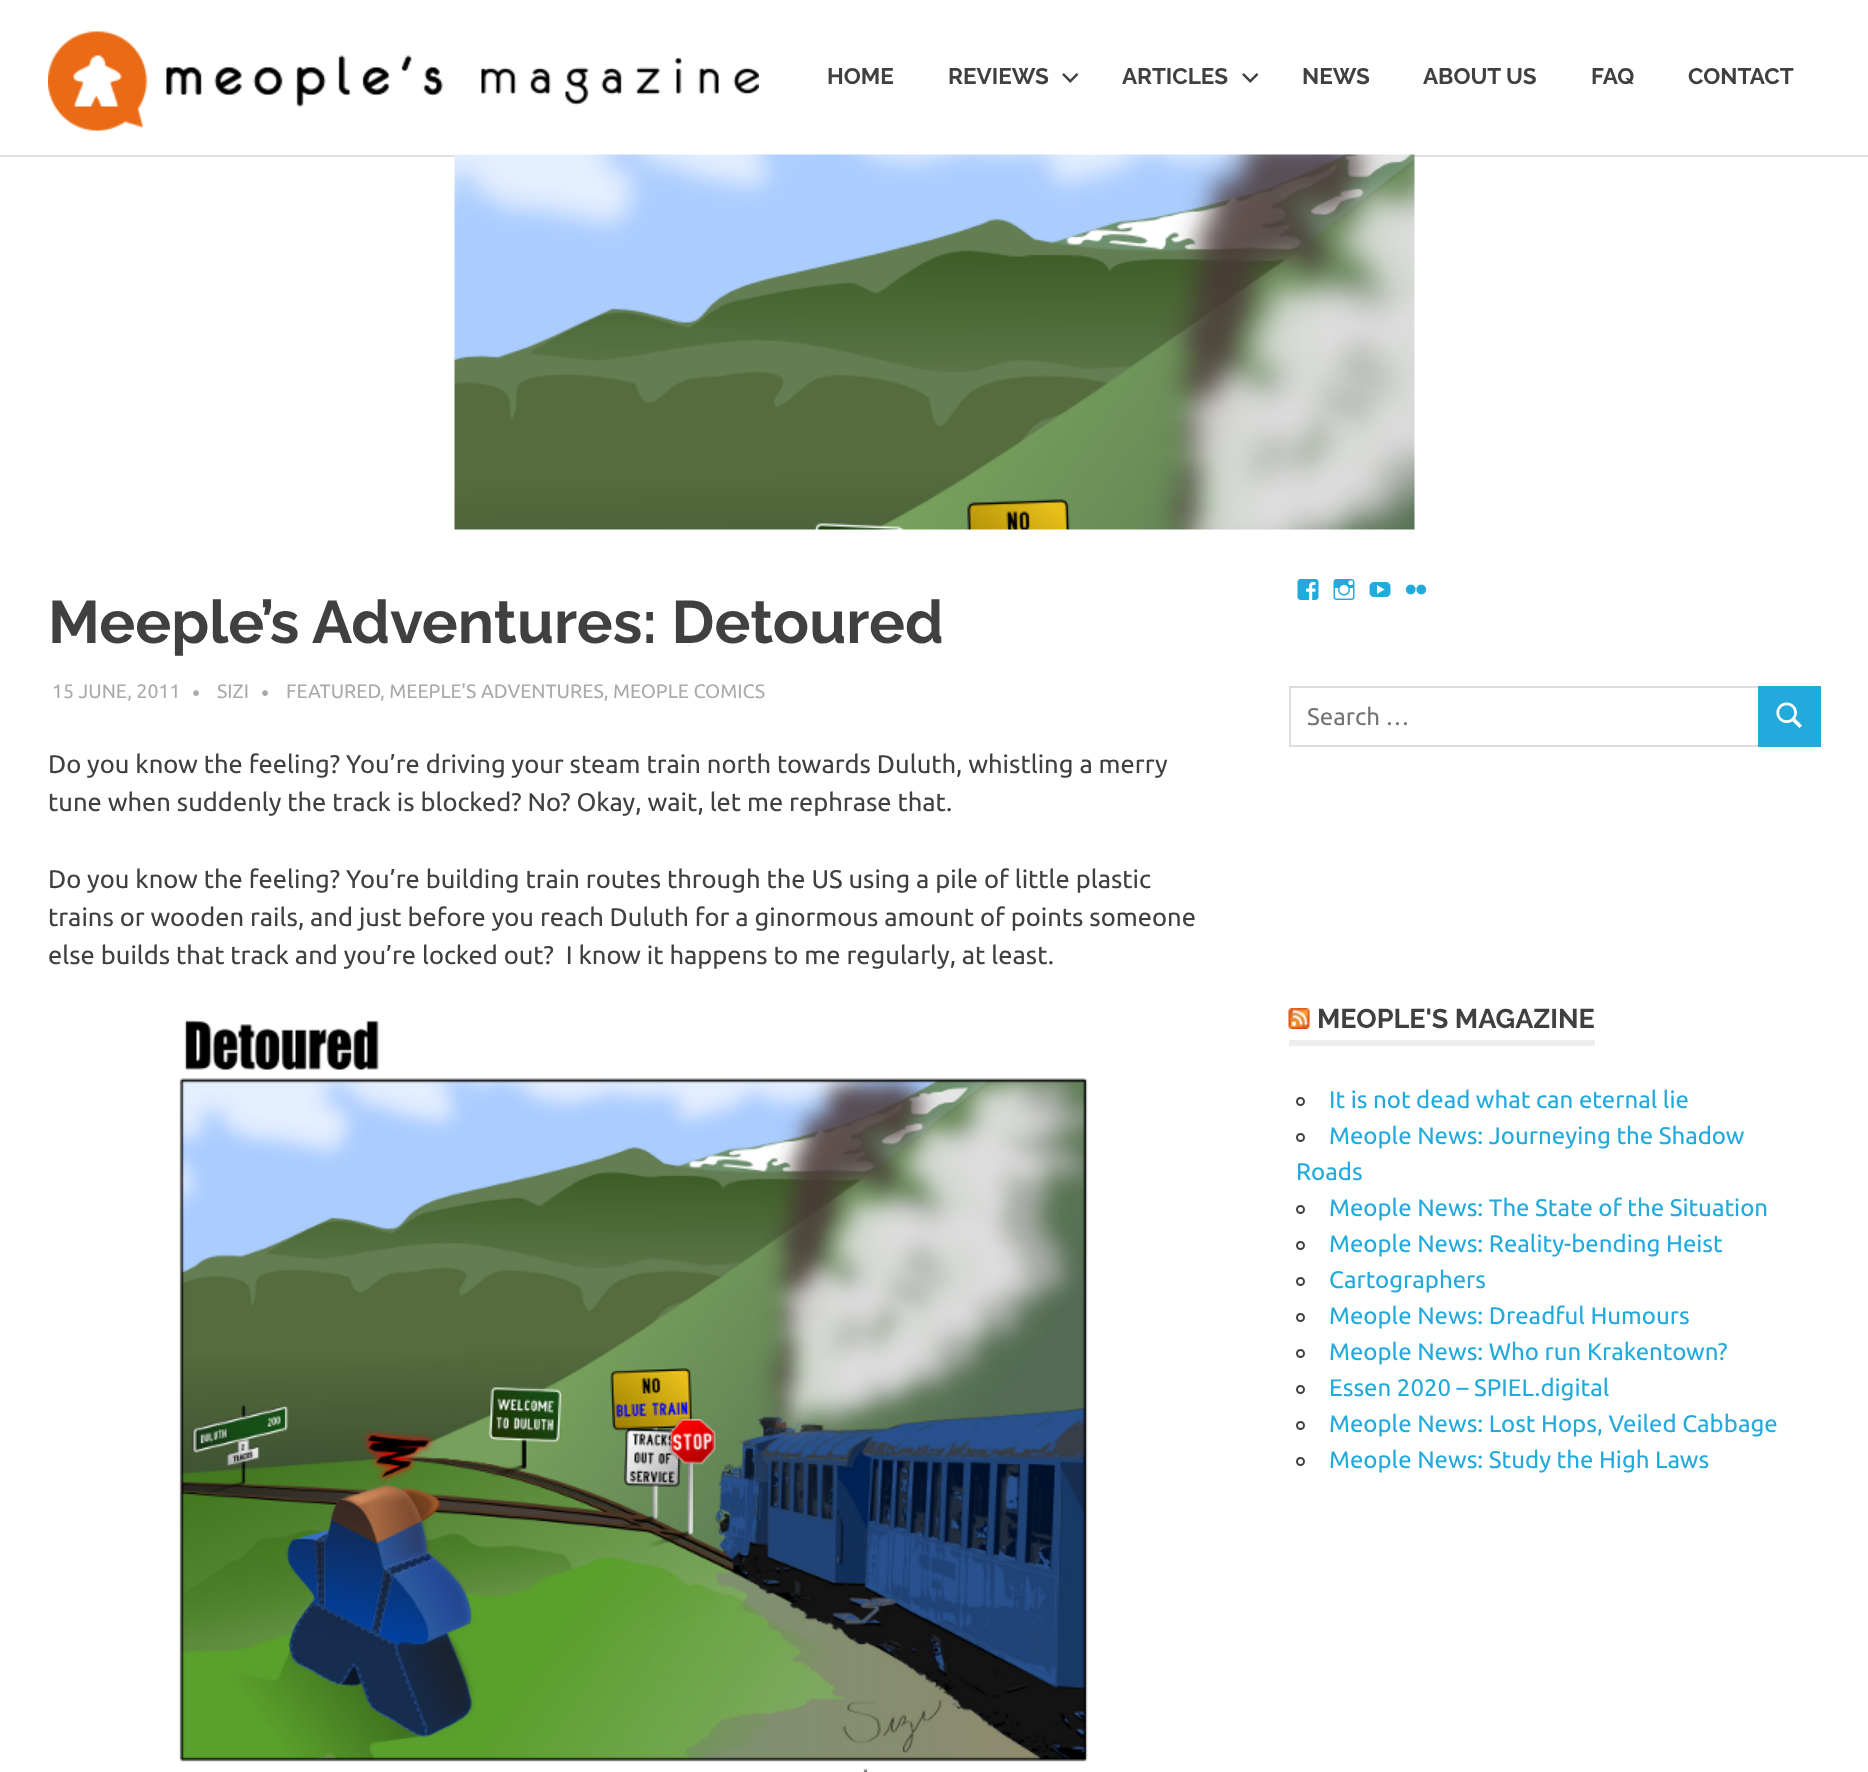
(async () => {
const canvas = document.querySelector("canvas")
canvas.width = 1868
canvas.height = 1772
const c = canvas.getContext("2d")
c.miterLimit = 4
c.fontKerning = "normal"
function T(s,x,y){c.fillText(s,x,y)}
function R(x,y,w,h){c.fillRect(x,y,w,h)}
async function I(src,x,y,w,h){const img=new Image();img.src=src;await img.decode();c.drawImage(img,x,y,w,h)}
c.fillStyle="#fff"
R(0,0,1868,1772)
c.fillStyle="#e0e0e0"
R(0,155,1868,2)
await I("1.png",48,31,711,100)
c.font="bold 22.5px Raleway"
c.fillStyle="#404040"
T("HOME",827,84)
T("REVIEWS",948,84)
await I("2.png",1062,73,17,10)
T("ARTICLES",1122,84)
await I("2.png",1242,73,17,10)
T("NEWS",1302,84)
T("ABOUT US",1423,84)
T("FAQ",1591,84)
T("CONTACT",1688,84)
await I("3.png",454,154,961,376)
c.font="bold 60px Raleway"
T("Meeple’s Adventures: Detoured",48,643)
c.font="19.5px Ubuntu"
c.fillStyle="#aaa"
T("15 JUNE, 2011",52,698)
c.font="22.5px Ubuntu"
T("•",192,701)
c.font="19.5px Ubuntu"
T("SIZI",217,698)
c.font="22.5px Ubuntu"
T("•",261,701)
c.font="19.5px Ubuntu"
T("FEATURED",286,698)
T(", MEEPLE'S ADVENTURES, MEOPLE COMICS",380,698)
c.font="25.5px Ubuntu"
c.fillStyle="#404040"
T("Do you know the feeling? You’re driving your steam train north towards Duluth, whistling a merry",48,773)
T("tune when suddenly the track is blocked? No? Okay, wait, let me rephrase that.",48,811)
T("Do you know the feeling? You’re building train routes through the US using a pile of little plastic",48,888)
T("trains or wooden rails, and just before you reach Duluth for a ginormous amount of points someone",48,926)
T("else builds that track and you’re locked out?  I know it happens to me regularly, at least.",48,964)
await I("4.png",179,1020,909,752)
await I("5.png",1297,579,22,21)
await I("6.png",1333,579,22,21)
await I("7.png",1369,582,22,15)
await I("8.png",1405,584,22,11)
c.strokeStyle="#ddd"
c.lineWidth=2
c.strokeRect(1290,687,469,59)
c.font="24px Ubuntu"
c.fillStyle="#757575"
T("Search …",1307,725)
c.fillStyle="#2ad"
R(1758,686,63,61)
await I("9.png",1776,702,26,26)
c.fillStyle="#eee"
R(1289,1040,306,6)
await I("10.png",1288,1008,22,21)
c.font="bold 27px Raleway"
c.fillStyle="#404040"
T("MEOPLE'S MAGAZINE",1317,1028)
c.beginPath()
c.arc(1300.5,1101.5,3.5,0,7)
c.strokeStyle="#404040"
c.stroke()
c.font="24px Ubuntu"
c.fillStyle="#2ad"
T("It is not dead what can eternal lie",1329,1108)
c.beginPath()
c.arc(1300.5,1137.5,3.5,0,7)
c.stroke()
T("Meople News: Journeying the Shadow",1329,1144)
T("Roads",1296,1180)
c.beginPath()
c.arc(1300.5,1209.5,3.5,0,7)
c.stroke()
T("Meople News: The State of the Situation",1329,1216)
c.beginPath()
c.arc(1300.5,1245.5,3.5,0,7)
c.stroke()
T("Meople News: Reality-bending Heist",1329,1252)
c.beginPath()
c.arc(1300.5,1281.5,3.5,0,7)
c.stroke()
T("Cartographers",1329,1288)
c.beginPath()
c.arc(1300.5,1317.5,3.5,0,7)
c.stroke()
T("Meople News: Dreadful Humours",1329,1324)
c.beginPath()
c.arc(1300.5,1353.5,3.5,0,7)
c.stroke()
T("Meople News: Who run Krakentown?",1329,1360)
c.beginPath()
c.arc(1300.5,1389.5,3.5,0,7)
c.stroke()
T("Essen 2020 – SPIEL.digital",1329,1396)
c.beginPath()
c.arc(1300.5,1425.5,3.5,0,7)
c.stroke()
T("Meople News: Lost Hops, Veiled Cabbage",1329,1432)
c.beginPath()
c.arc(1300.5,1461.5,3.5,0,7)
c.stroke()
T("Meople News: Study the High Laws",1329,1468)
})()
